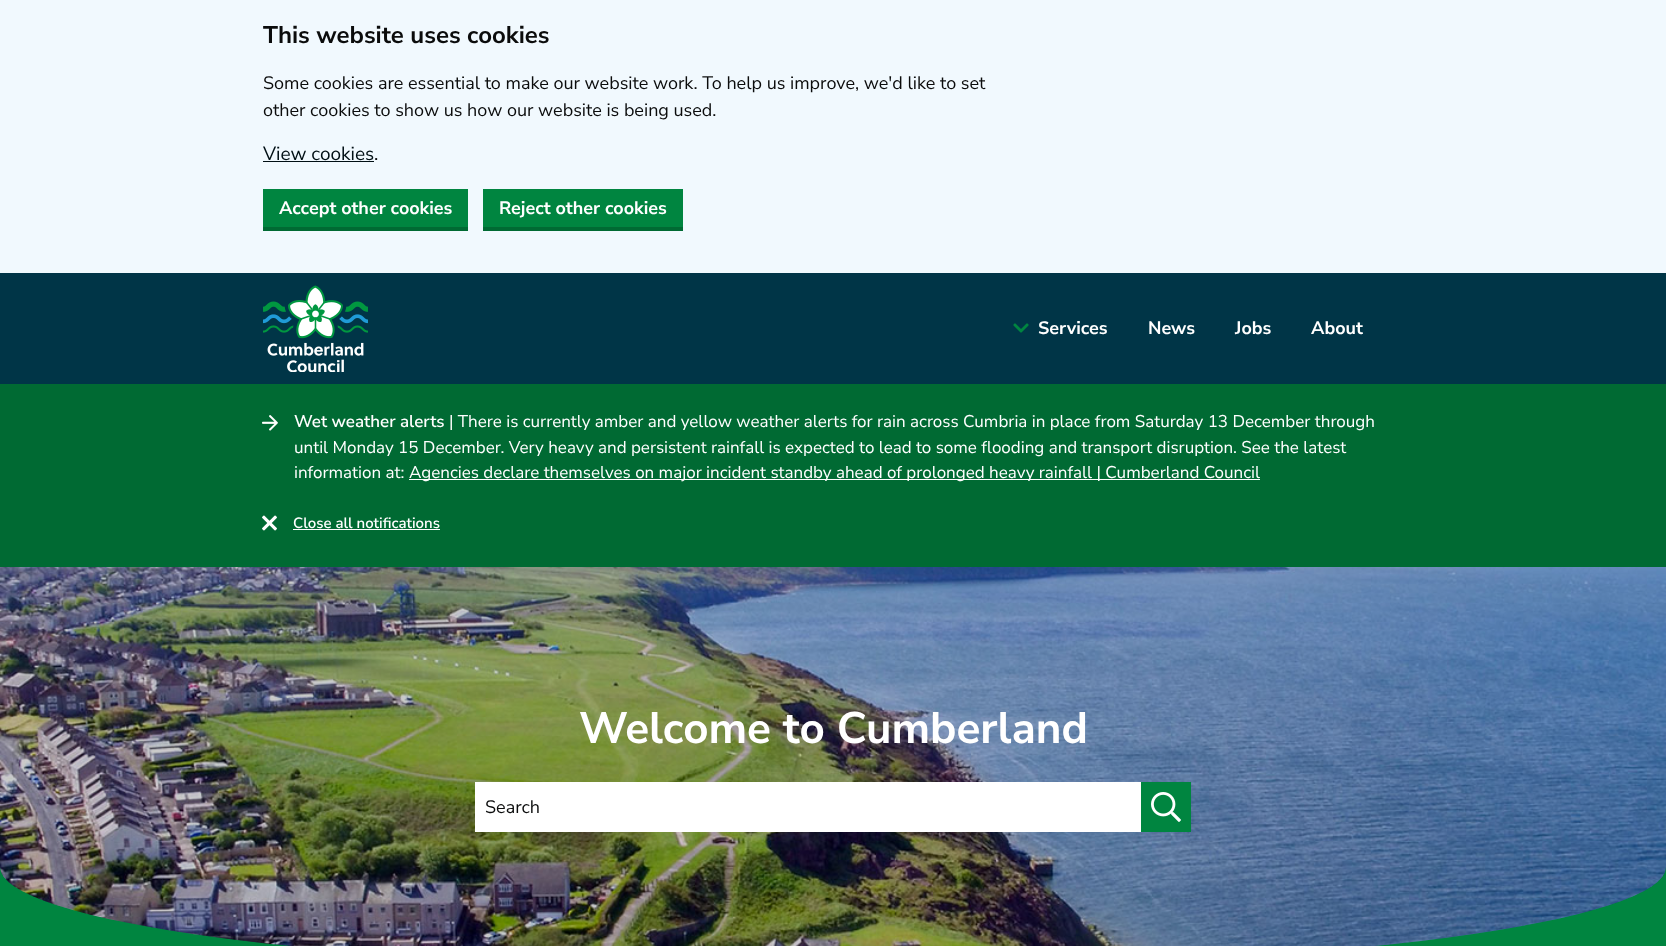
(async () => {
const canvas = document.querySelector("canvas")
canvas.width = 1666
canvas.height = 946
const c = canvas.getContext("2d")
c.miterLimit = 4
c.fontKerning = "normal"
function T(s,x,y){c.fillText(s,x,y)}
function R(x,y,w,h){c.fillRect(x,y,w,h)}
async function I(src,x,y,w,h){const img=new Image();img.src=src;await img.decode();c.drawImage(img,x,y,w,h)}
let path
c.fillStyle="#f1f9fe"
R(0,0,1666,946)
c.font="bold 24px Nunito Sans"
c.fillStyle="#0b0c0c"
T("This website uses cookies",263,43)
c.font="18px Nunito Sans"
T("Some cookies are essential to make our website work. To help us improve, we'd like to set",263,89)
T("other cookies to show us how our website is being used.",263,116)
c.font="19px Nunito Sans"
c.fillStyle="#000f14"
T("View cookies",263,160)
R(263,161,111,1)
c.fillStyle="#0b0c0c"
T(".",374,160)
c.fillStyle="#008540"
R(263,189,205,38)
c.fillStyle="#006a33"
R(263,227,205,4)
c.font="bold 18px Nunito Sans"
c.fillStyle="#fff"
T("Accept other cookies",279,214)
c.fillStyle="#008540"
R(483,189,200,38)
c.fillStyle="#006a33"
R(483,227,200,4)
c.fillStyle="#fff"
T("Reject other cookies",499,214)
c.fillStyle="#003547"
R(0,273,1666,111)
await I("1.png",263,285,105,87)
await I("2.png",1013,323,16,10)
c.fillStyle="#fff"
T("Services",1038,334)
T("News",1148,334)
T("Jobs",1235,334)
T("About",1311,334)
c.fillStyle="#006a33"
R(0,384,1666,183)
await I("3.png",262,415,16,16)
c.font="600 17px Nunito Sans"
c.fillStyle="#fff"
T("Wet weather alerts",294,427)
c.font="17px Nunito Sans"
T("| There is currently amber and yellow weather alerts for rain across Cumbria in place from Saturday 13 December through",449,427)
T("until Monday 15 December. Very heavy and persistent rainfall is expected to lead to some flooding and transport disruption. See the latest",294,453)
T("information at:",294,478)
R(409,479,851,1)
T("Agencies declare themselves on major incident standby ahead of prolonged heavy rainfall | Cumberland Council",409,478)
await I("4.png",262,515,15,16)
c.font="600 15px Nunito Sans"
T("Close all notifications",293,528)
R(293,529,147,1)
c.fillStyle="#008540"
R(0,867,1666,79)
await I("5.png",0,567,1666,379)
c.fillStyle="#00000033"
path = new Path2D("M0 567h1666v300c0 55-336 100-750 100h-166c-414 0-750-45-750-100z")
c.fill(path)
c.font="bold 44px Nunito Sans"
c.fillStyle="#fff"
T("Welcome to Cumberland",579,743)
R(475,782,666,50)
c.font="18px Nunito Sans"
c.fillStyle="#0b0c0c"
T("Search",485,813)
c.fillStyle="#008540"
R(1141,782,50,50)
await I("6.png",1151,792,30,30)
})()
